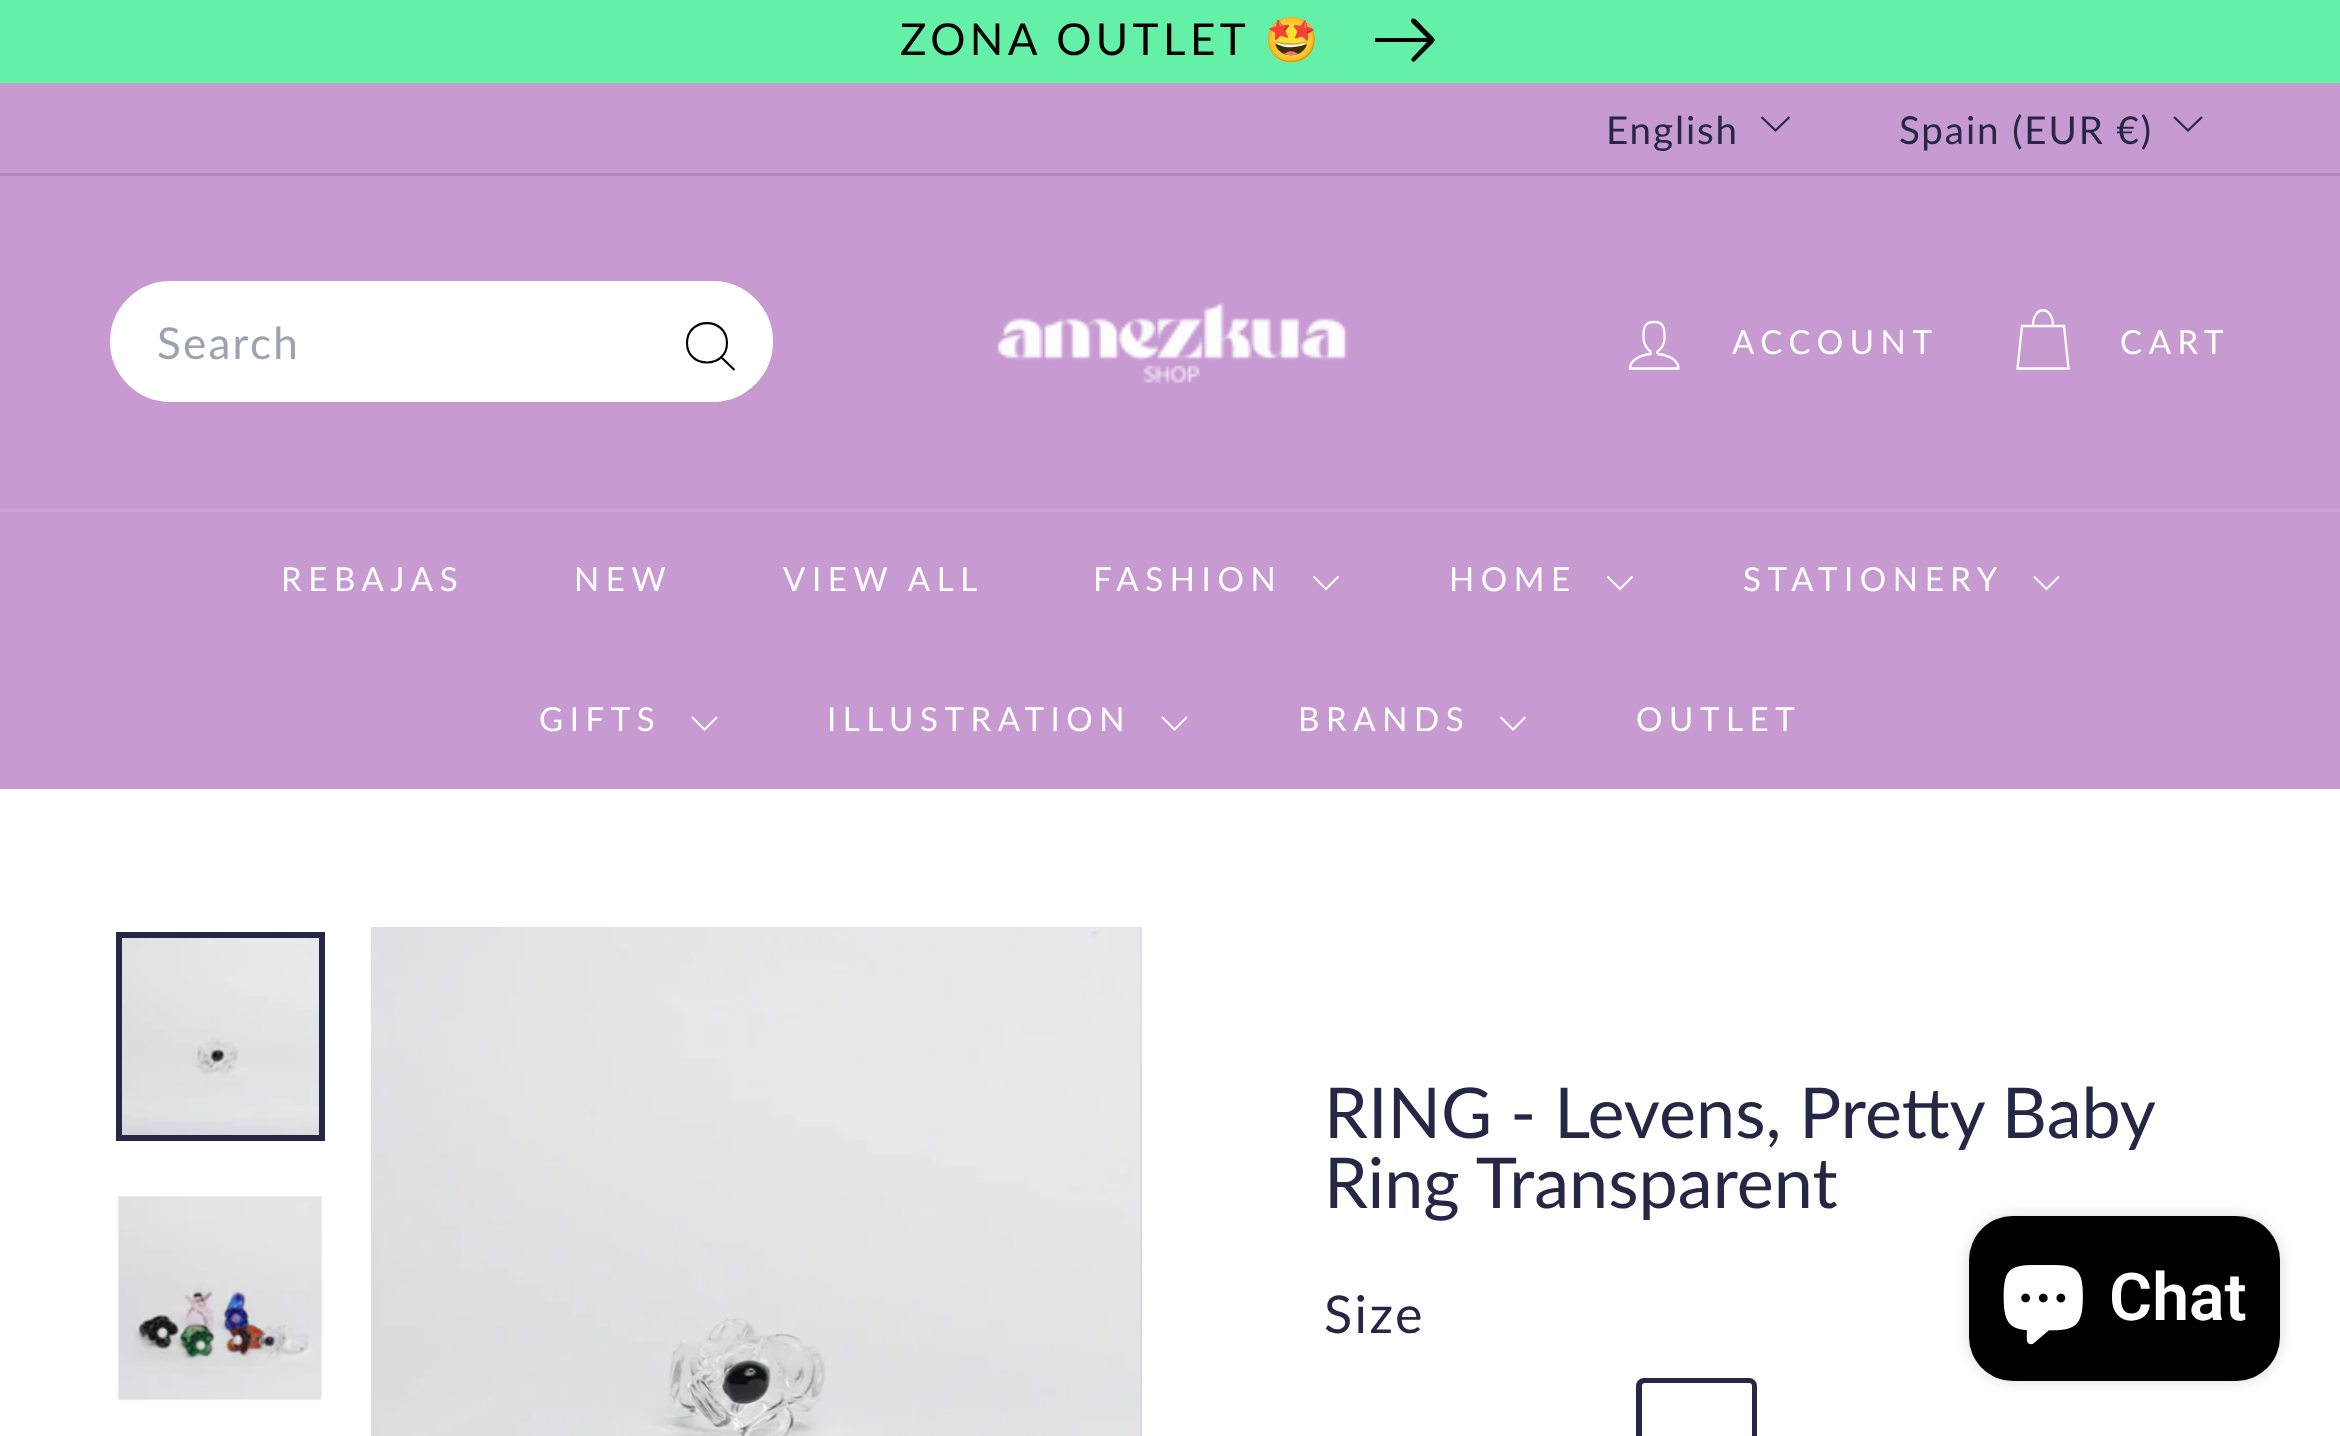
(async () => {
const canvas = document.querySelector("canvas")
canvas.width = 2340
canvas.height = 1436
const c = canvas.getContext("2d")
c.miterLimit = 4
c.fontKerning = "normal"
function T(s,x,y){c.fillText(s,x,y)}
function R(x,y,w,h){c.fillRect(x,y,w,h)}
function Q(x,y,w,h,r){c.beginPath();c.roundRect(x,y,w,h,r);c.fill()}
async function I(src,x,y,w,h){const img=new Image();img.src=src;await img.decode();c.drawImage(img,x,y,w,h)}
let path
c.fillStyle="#fff"
R(0,0,2340,1436)
c.fillStyle="#64f1a7"
R(0,0,2340,83)
c.letterSpacing="4.4px"
c.font="44px Lato"
c.fillStyle="#000"
T("ZONA OUTLET",900,55)
c.font="44px Noto Color Emoji"
T("🤩",1264,55)
c.save()
c.beginPath()
c.rect(1375,17,66,46)
c.clip()
path = new Path2D("M1411 20c3-5 10 5 11 6l9 9c5 5 5 5 0 10l-16 16c-2 2-5-1-3-3l15-16h-43c-5 0-12 1-10-3l1-1h52l-15-15c-1-1-1-2-1-3z")
c.fill(path,"evenodd")
c.restore()
c.fillStyle="#c79ad2"
R(0,83,2340,90)
c.letterSpacing="1.9px"
c.font="38.5px Lato"
c.fillStyle="#262745"
T("English",1606,144)
path = new Path2D("M1761.5 117l14 13.5l14-13.5")
c.strokeStyle="#262745"
c.lineWidth=2.2
c.stroke(path)
T("Spain (EUR €)",1899,144)
path = new Path2D("M2174 117l14 13.5l14-13.5")
c.stroke(path)
c.fillStyle="#af89bd"
R(0,173,2340,3)
c.fillStyle="#c79ad2"
R(0,176,2340,333)
c.fillStyle="#fff"
c.beginPath()
c.roundRect(111.5,282.5,660,118,59)
c.fill()
c.strokeStyle="#fff"
c.lineWidth=3
c.stroke()
c.letterSpacing="2.25px"
c.font="44px Lato"
c.fillStyle="#9ca3af"
T("Search",157,359)
path = new Path2D("M727 343c0 26-40 26-40 0c0-26.5 40-26.5 40 0m7.5 27l-13-12.5")
c.strokeStyle="#000"
c.lineWidth=2.1
c.stroke(path)
await I("1.png",997,302,351,82)
path = new Path2D("M1657.5 354v-2.5c4-2.5 7-8 7-13.5c0-9 0-16-10.5-16c-10.5 0-10.5 7-10.5 16c0 5.5 3.5 11 7 13.5v2.5c-11.5 1-20.5 7-20.5 14.5h48.5c0-7.5-9-13.5-21-14.5")
c.strokeStyle="#fff"
c.lineWidth=2.3
c.stroke(path)
c.letterSpacing="6.6px"
c.font="33px Lato"
c.fillStyle="#fff"
T("ACCOUNT",1732,354)
path = new Path2D("M2033 326c0-21 20-21 20 0m-31 0h42l4.5 42.5h-51z")
c.stroke(path)
T("CART",2120,354)
c.fillStyle="#c79ad2"
R(0,512,2340,277)
c.fillStyle="#cda4d7"
R(0,509,2340,3)
c.fillStyle="#fff"
T("REBAJAS",281,591)
T("NEW",574,591)
T("VIEW ALL",783,591)
T("FASHION",1093,591)
path = new Path2D("M1313.5 576.5l12.5 12.5l12.5-12.5")
c.lineWidth=2
c.stroke(path)
T("HOME",1449,591)
path = new Path2D("M1607.5 576.5l12.5 12.5l12.5-12.5")
c.stroke(path)
T("STATIONERY",1743,591)
path = new Path2D("M2034 576.5l12.5 12.5l12.5-12.5")
c.stroke(path)
T("GIFTS",539,731)
path = new Path2D("M692 717l12.5 12.5l12.5-12.5")
c.stroke(path)
T("ILLUSTRATION",827,731)
path = new Path2D("M1162 717l12.5 12.5l12.5-12.5")
c.stroke(path)
T("BRANDS",1298,731)
path = new Path2D("M1500.5 717l12.5 12.5l12.5-12.5")
c.stroke(path)
T("OUTLET",1636,731)
await I("2.png",122,938,197,197)
c.strokeStyle="#262745"
c.lineWidth=6
c.strokeRect(119,935,203,203)
await I("3.png",117,1196,206,205)
await I("4.png",371,927,769,509)
await I("5.png",1140,927,2,509)
c.letterSpacing="0px"
c.font="70.1px Lato"
c.fillStyle="#262745"
T("RING - Levens, Pretty Baby",1324,1138)
T("Ring Transparent",1324,1208)
c.letterSpacing="2.5px"
c.font="52px Lato"
T("Size",1324,1333)
c.beginPath()
c.roundRect(1639,1381,115,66,5)
c.stroke()
c.fillStyle="#fff"
Q(1642,1383,110,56,3)
c.fillStyle="#00000026"
c.filter="blur(7px)"
c.beginPath()
c.roundRect(1969,1216,311,165,44)
c.fill()
c.filter="none"
c.fillStyle="#000"
Q(1969,1216,311,165,44)
await I("6.png",2003,1265,80,80)
c.letterSpacing="0px"
c.font="600 66px Roboto"
c.fillStyle="#fff"
T("Chat",2109,1320)
})()
